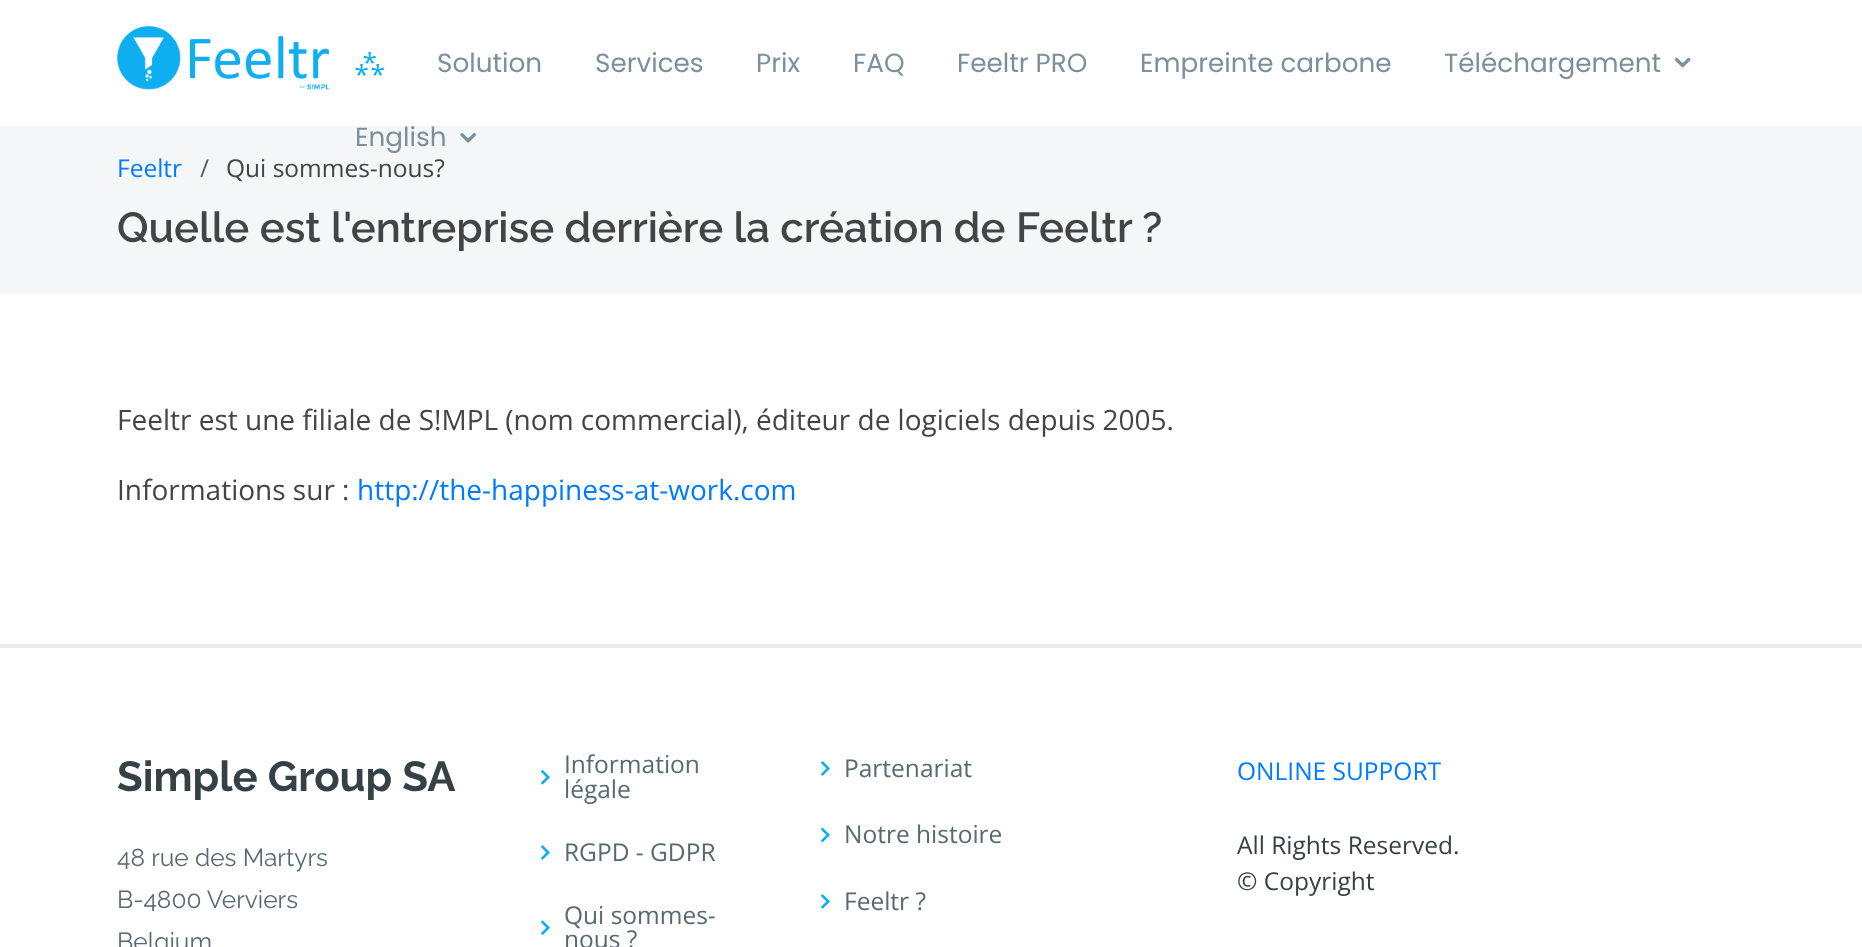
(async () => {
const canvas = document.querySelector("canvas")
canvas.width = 1862
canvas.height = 947
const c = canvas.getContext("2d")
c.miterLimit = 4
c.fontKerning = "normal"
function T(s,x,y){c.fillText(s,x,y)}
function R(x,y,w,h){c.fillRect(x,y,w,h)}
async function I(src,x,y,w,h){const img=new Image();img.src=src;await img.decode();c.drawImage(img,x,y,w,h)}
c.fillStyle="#fff"
R(0,0,1862,947)
await I("1.png",117,26,212,64)
c.font="26.25px Noto Sans"
c.fillStyle="#0faef0"
T("⁂",355,72)
c.font="26.25px Poppins"
c.fillStyle="#7b909a"
T("Solution",437,72)
T("Services",595,72)
T("Prix",756,72)
T("FAQ",853,72)
T("Feeltr PRO",957,72)
T("Empreinte carbone",1140,72)
T("Téléchargement",1444,72)
await I("2.png",1674,57,17,11)
c.fillStyle="#f4f6f7"
R(0,126,1862,168)
c.fillStyle="#7b909a"
T("English",355,146)
await I("3.png",460,133,16,10)
c.font="24.5px Open Sans"
c.fillStyle="#007bff"
T("Feeltr",117,177)
c.fillStyle="#4c5c63"
T("/",200,177)
c.fillStyle="#444"
T("Qui sommes-nous?",226,177)
c.font="600 42px Raleway"
T("Quelle est l'entreprise derrière la création de Feeltr ?",117,242)
c.font="28px Open Sans"
T("Feeltr est une filiale de S!MPL (nom commercial), éditeur de logiciels depuis 2005.",117,430)
T("Informations sur :",117,500)
c.fillStyle="#007bff"
T("http://the-happiness-at-work.com",357,500)
c.fillStyle="#e9ecee"
R(0,644,1862,4)
c.font="bold 42px Raleway"
c.fillStyle="#364146"
T("Simple Group SA",117,791)
c.font="24.5px Raleway"
c.fillStyle="#576971"
T("48 rue des Martyrs",117,866)
T("B-4800 Verviers",117,908)
T("Belgium",117,950)
await I("4.png",540,769,10,16)
c.font="24.5px Open Sans"
T("Information",564,773)
T("légale",564,798)
await I("5.png",540,845,10,15)
T("RGPD - GDPR",564,861)
await I("6.png",540,920,10,16)
T("Qui sommes-",564,924)
T("nous ?",564,948)
await I("5.png",820,761,10,15)
T("Partenariat",844,777)
await I("7.png",820,827,10,16)
T("Notre histoire",844,843)
await I("5.png",820,894,10,15)
T("Feeltr ?",844,910)
c.fillStyle="#007bff"
T("ONLINE SUPPORT",1237,780)
c.fillStyle="#364146"
T("All Rights Reserved.",1237,854)
T("© Copyright",1237,890)
})()
